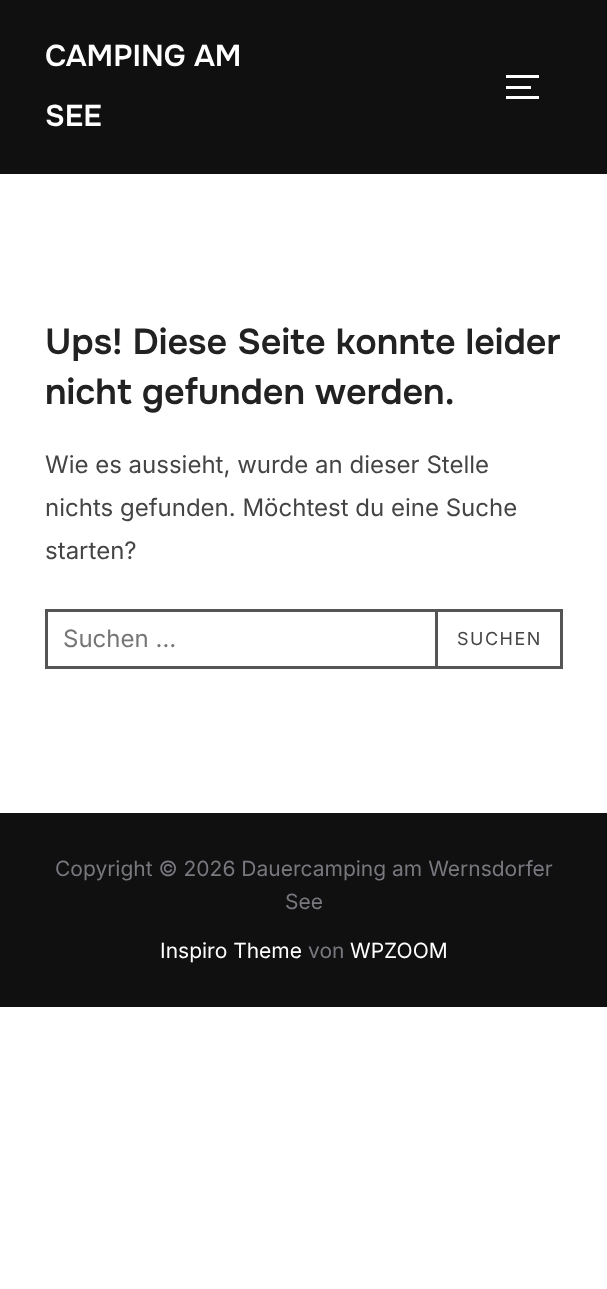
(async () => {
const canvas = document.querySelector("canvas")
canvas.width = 607
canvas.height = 1289
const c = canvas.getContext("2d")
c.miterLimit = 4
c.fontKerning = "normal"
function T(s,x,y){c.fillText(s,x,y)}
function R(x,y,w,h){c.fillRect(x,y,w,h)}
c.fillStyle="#fff"
R(0,0,607,1289)
c.fillStyle="#101010"
R(0,0,607,174)
c.font="600 30px Onest"
c.fillStyle="#fff"
T("CAMPING AM",45,66)
T("SEE",45,126)
R(506,75,33,3)
R(506,86,25,3)
R(506,96,33,3)
c.font="600 36px Onest"
c.fillStyle="#222"
T("Ups! Diese Seite konnte leider",45,354)
T("nicht gefunden werden.",45,404)
c.font="24px Inter"
c.fillStyle="#444"
T("Wie es aussieht, wurde an dieser Stelle",45,473)
T("nichts gefunden. Möchtest du eine Suche",45,516)
T("starten?",45,559)
c.strokeStyle="#565555"
c.lineWidth=3
c.strokeRect(46.5,610.5,515,57)
c.fillStyle="#757575"
T("Suchen …",63,647)
c.strokeRect(436.5,610.5,125,57)
c.letterSpacing="1.5px"
c.font="18px Inter"
c.fillStyle="#444"
T("SUCHEN",457,645)
c.fillStyle="#101010"
R(0,813,607,194)
c.letterSpacing="0px"
c.font="21px Inter"
c.fillStyle="#78787f"
T("Copyright © 2026 Dauercamping am Wernsdorfer",55,876)
T("See",285,909)
c.fillStyle="#fff"
T("Inspiro Theme",160,958)
c.fillStyle="#78787f"
T("von",308,958)
c.fillStyle="#fff"
T("WPZOOM",350,958)
})()
